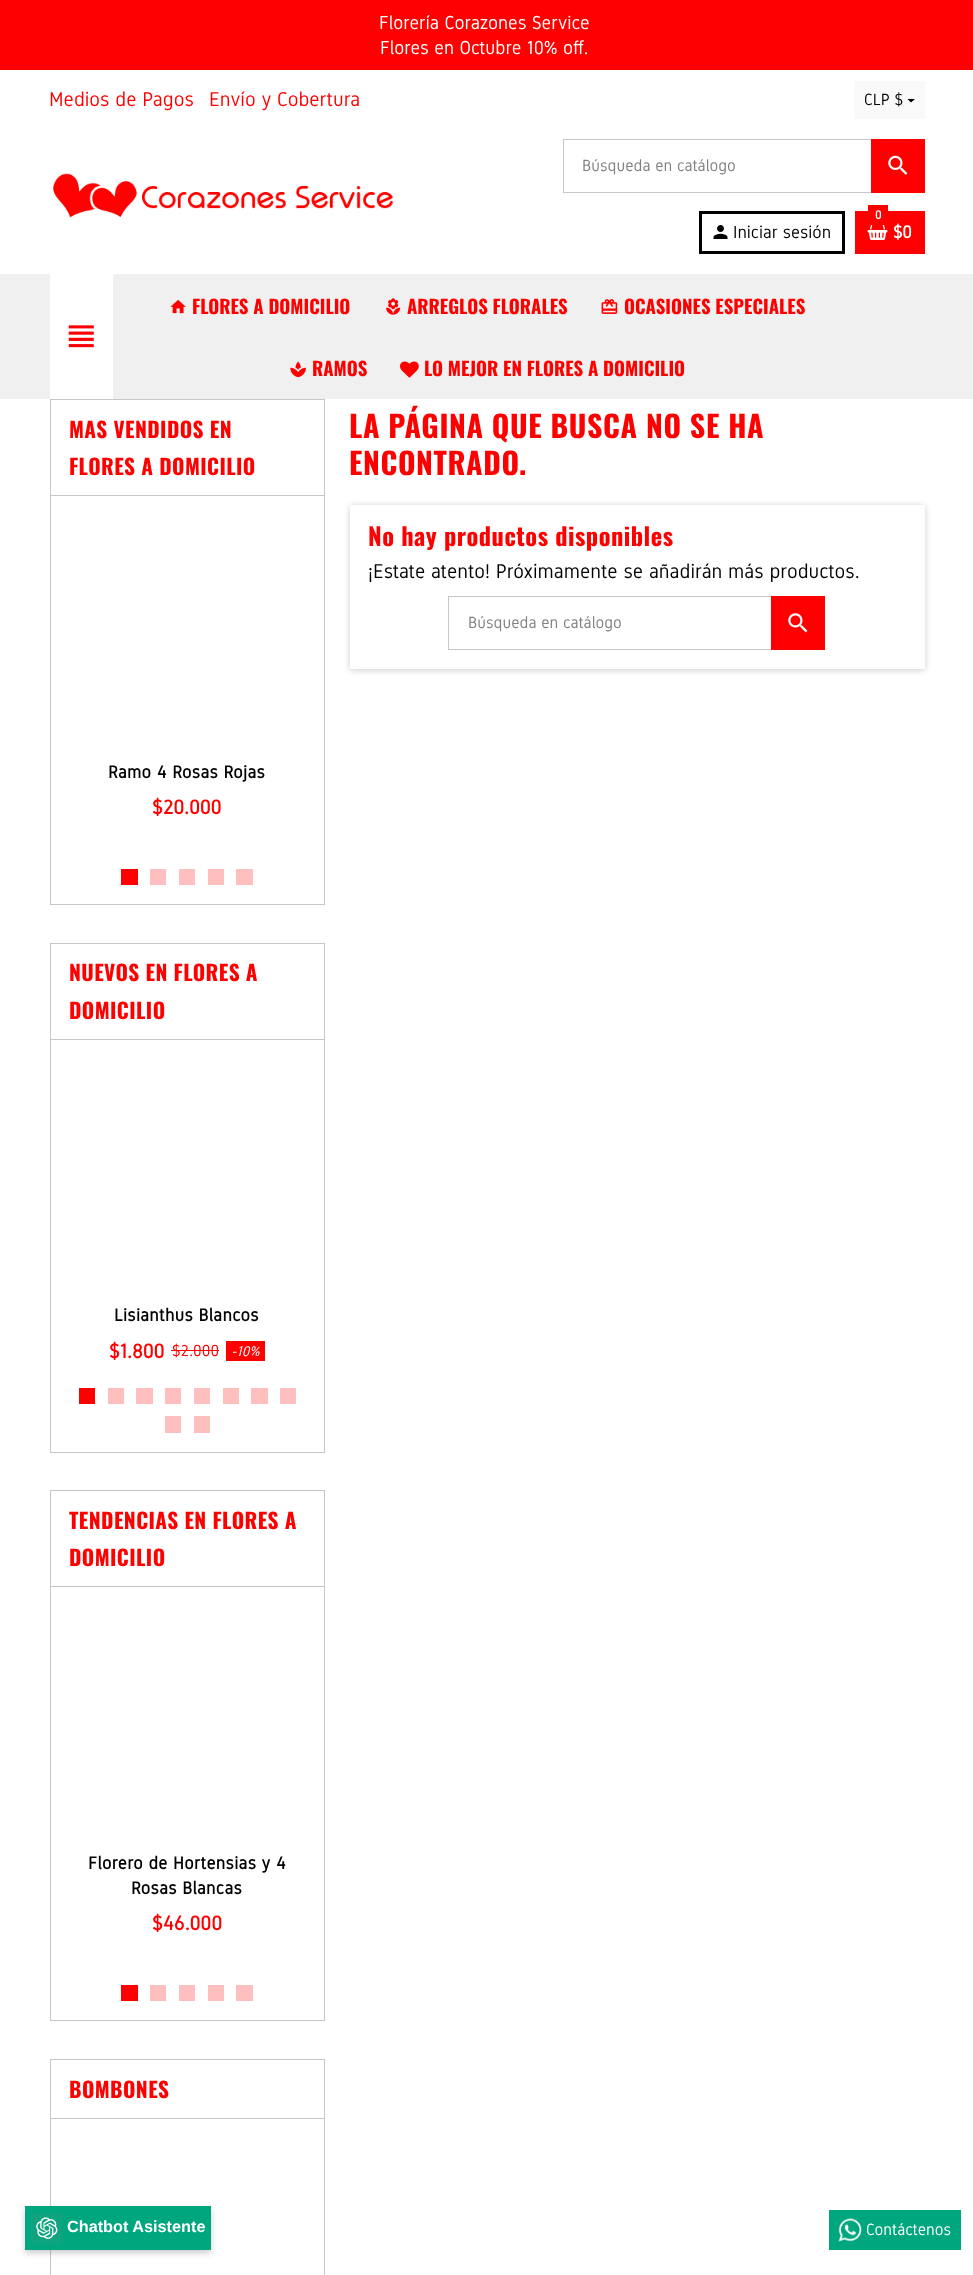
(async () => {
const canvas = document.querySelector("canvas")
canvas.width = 973
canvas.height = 2275
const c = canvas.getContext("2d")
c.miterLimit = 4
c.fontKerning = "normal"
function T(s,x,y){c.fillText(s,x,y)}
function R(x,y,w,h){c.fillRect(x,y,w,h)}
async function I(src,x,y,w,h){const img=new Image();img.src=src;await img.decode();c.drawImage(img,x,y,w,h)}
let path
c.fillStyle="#fff"
R(0,0,973,2275)
c.fillStyle="#f00"
R(0,0,973,70)
c.font="18.75px Gidole"
c.fillStyle="#fff"
T("Florería Corazones Service",379,29)
T("Flores en Octubre 10% off.",380,54)
c.font="20px Gidole"
c.fillStyle="#f00"
T("Medios de Pagos",49,106)
T("Envío y Cobertura",209,106)
c.fillStyle="#f9f9f9"
R(854,81,71,38)
c.font="16.25px Gidole"
c.fillStyle="#000"
T("CLP $",864,105)
path = new Path2D("M907.5 99h7.5l-4 3.5z")
c.fill(path)
await I("1.png",53,173,341,45)
c.strokeStyle="#c7c7c7"
c.strokeRect(563.5,139.5,360,53)
c.fillStyle="#808080"
T("Búsqueda en catálogo",582,171)
c.fillStyle="#f00"
R(871,139,54,54)
await I("2.png",888,155,20,20)
c.strokeStyle="#000"
c.lineWidth=3
c.strokeRect(700.5,212.5,143,40)
await I("3.png",713,225,15,14)
c.font="17.5px Gidole"
c.fillStyle="#000"
T("Iniciar sesión",733,238)
c.fillStyle="#f00"
R(855,211,70,43)
R(868,205,20,6)
c.font="bold 12px Gidole"
c.fillStyle="#fff"
T("0",875,219)
await I("4.png",867,225,21,15)
c.font="bold 17.5px Gidole"
T("$0",893,238)
c.fillStyle="#f0f0f0"
R(0,274,973,125)
c.fillStyle="#fff"
R(50,274,63,125)
await I("5.png",68,325,26,23)
await I("6.png",170,299,16,15)
c.font="bold 18.75px Oswald"
c.fillStyle="#f00"
T("FLORES A DOMICILIO",192,314)
await I("7.png",386,298,15,17)
T("ARREGLOS FLORALES",407,314)
await I("8.png",601,299,17,15)
T("OCASIONES ESPECIALES",624,314)
await I("9.png",290,361,16,17)
T("RAMOS",312,376)
await I("10.png",400,361,19,17)
T("LO MEJOR EN FLORES A DOMICILIO",424,376)
c.strokeStyle="#c7c7c7"
c.lineWidth=1
c.strokeRect(50.5,399.5,274,505)
c.fillStyle="#c7c7c7"
R(51,495,273,1)
c.letterSpacing="0.4px"
c.font="bold 21.25px Oswald"
c.fillStyle="#f00"
T("MAS VENDIDOS EN",69,438)
T("FLORES A DOMICILIO",69,475)
c.letterSpacing="0.35px"
c.font="bold 17.5px Gidole"
c.fillStyle="#000"
T("Ramo 4 Rosas Rojas",108,778)
c.letterSpacing="0px"
c.font="bold 20px Gidole"
c.fillStyle="#f00"
T("$20.000",152,814)
R(121,869,17,16)
c.fillStyle="#ffbfbf"
R(150,869,16,16)
R(179,869,16,16)
R(208,869,16,16)
R(236,869,17,16)
c.strokeRect(50.5,943.5,274,509)
c.fillStyle="#c7c7c7"
R(51,1039,273,1)
c.letterSpacing="0.4px"
c.font="bold 21.25px Oswald"
c.fillStyle="#f00"
T("NUEVOS EN FLORES A",69,981)
T("DOMICILIO",69,1019)
c.letterSpacing="0.35px"
c.font="bold 17.5px Gidole"
c.fillStyle="#000"
T("Lisianthus Blancos",114,1321)
c.letterSpacing="0px"
c.font="bold 20px Gidole"
c.fillStyle="#f00"
T("$1.800",109,1358)
c.font="16px Gidole"
T("$2.000",172,1356)
R(171,1350,48,1)
R(226,1341,39,20)
c.font="italic 14px Gidole"
c.fillStyle="#fff"
T("-10%",231,1356)
c.fillStyle="#f00"
R(79,1388,16,16)
c.fillStyle="#ffbfbf"
R(108,1388,16,16)
R(136,1388,17,16)
R(165,1388,16,16)
R(194,1388,16,16)
R(223,1388,16,16)
R(251,1388,17,16)
R(280,1388,16,16)
R(165,1416,16,17)
R(194,1416,16,17)
c.strokeRect(50.5,1490.5,274,530)
c.fillStyle="#c7c7c7"
R(51,1586,273,1)
c.letterSpacing="0.4px"
c.font="bold 21.25px Oswald"
c.fillStyle="#f00"
T("TENDENCIAS EN FLORES A",69,1529)
T("DOMICILIO",69,1566)
c.letterSpacing="0.35px"
c.font="bold 17.5px Gidole"
c.fillStyle="#000"
T("Florero de Hortensias y 4",88,1869)
T("Rosas Blancas",131,1894)
c.letterSpacing="0px"
c.font="bold 20px Gidole"
c.fillStyle="#f00"
T("$46.000",152,1930)
R(121,1985,17,16)
c.fillStyle="#ffbfbf"
R(150,1985,16,16)
R(179,1985,16,16)
R(208,1985,16,16)
R(236,1985,17,16)
c.strokeRect(50.5,2059.5,274,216)
c.fillStyle="#c7c7c7"
R(51,2118,273,1)
c.letterSpacing="0.4px"
c.font="bold 21.25px Oswald"
c.fillStyle="#f00"
T("BOMBONES",69,2098)
c.letterSpacing="0.6px"
c.font="bold 30px Oswald"
T("LA PÁGINA QUE BUSCA NO SE HA",349,438)
T("ENCONTRADO.",349,475)
c.fillStyle="#00000033"
c.filter="blur(3px)"
c.beginPath()
c.rect(350,506,575,164)
c.fill()
c.filter="none"
c.fillStyle="#fff"
R(350,505,575,164)
c.letterSpacing="0.5px"
c.font="bold 24.4px Oswald"
c.fillStyle="#f00"
T("No hay productos disponibles",368,546)
c.letterSpacing="0px"
c.font="20px Gidole"
c.fillStyle="#000"
T("¡Estate atento! Próximamente se añadirán más productos.",368,578)
c.strokeRect(448.5,596.5,375,53)
c.font="16.25px Gidole"
c.fillStyle="#808080"
T("Búsqueda en catálogo",468,628)
c.fillStyle="#f00"
R(771,596,54,54)
await I("11.png",788,613,20,20)
c.fillStyle="#00000033"
c.filter="blur(3px)"
c.beginPath()
c.rect(25,2209,186,44)
c.fill()
c.filter="none"
c.fillStyle="#00a67e"
R(25,2206,186,44)
await I("12.png",31,2213,32,31)
c.font="bold 16.25px Liberation Sans"
c.fillStyle="#fff"
T("Chatbot Asistente",67,2232)
c.fillStyle="#00a67e"
R(829,2210,132,40)
await I("13.png",838,2218,24,24)
c.font="16.25px Gidole"
c.fillStyle="#fff"
T("Contáctenos",866,2235)
})()
